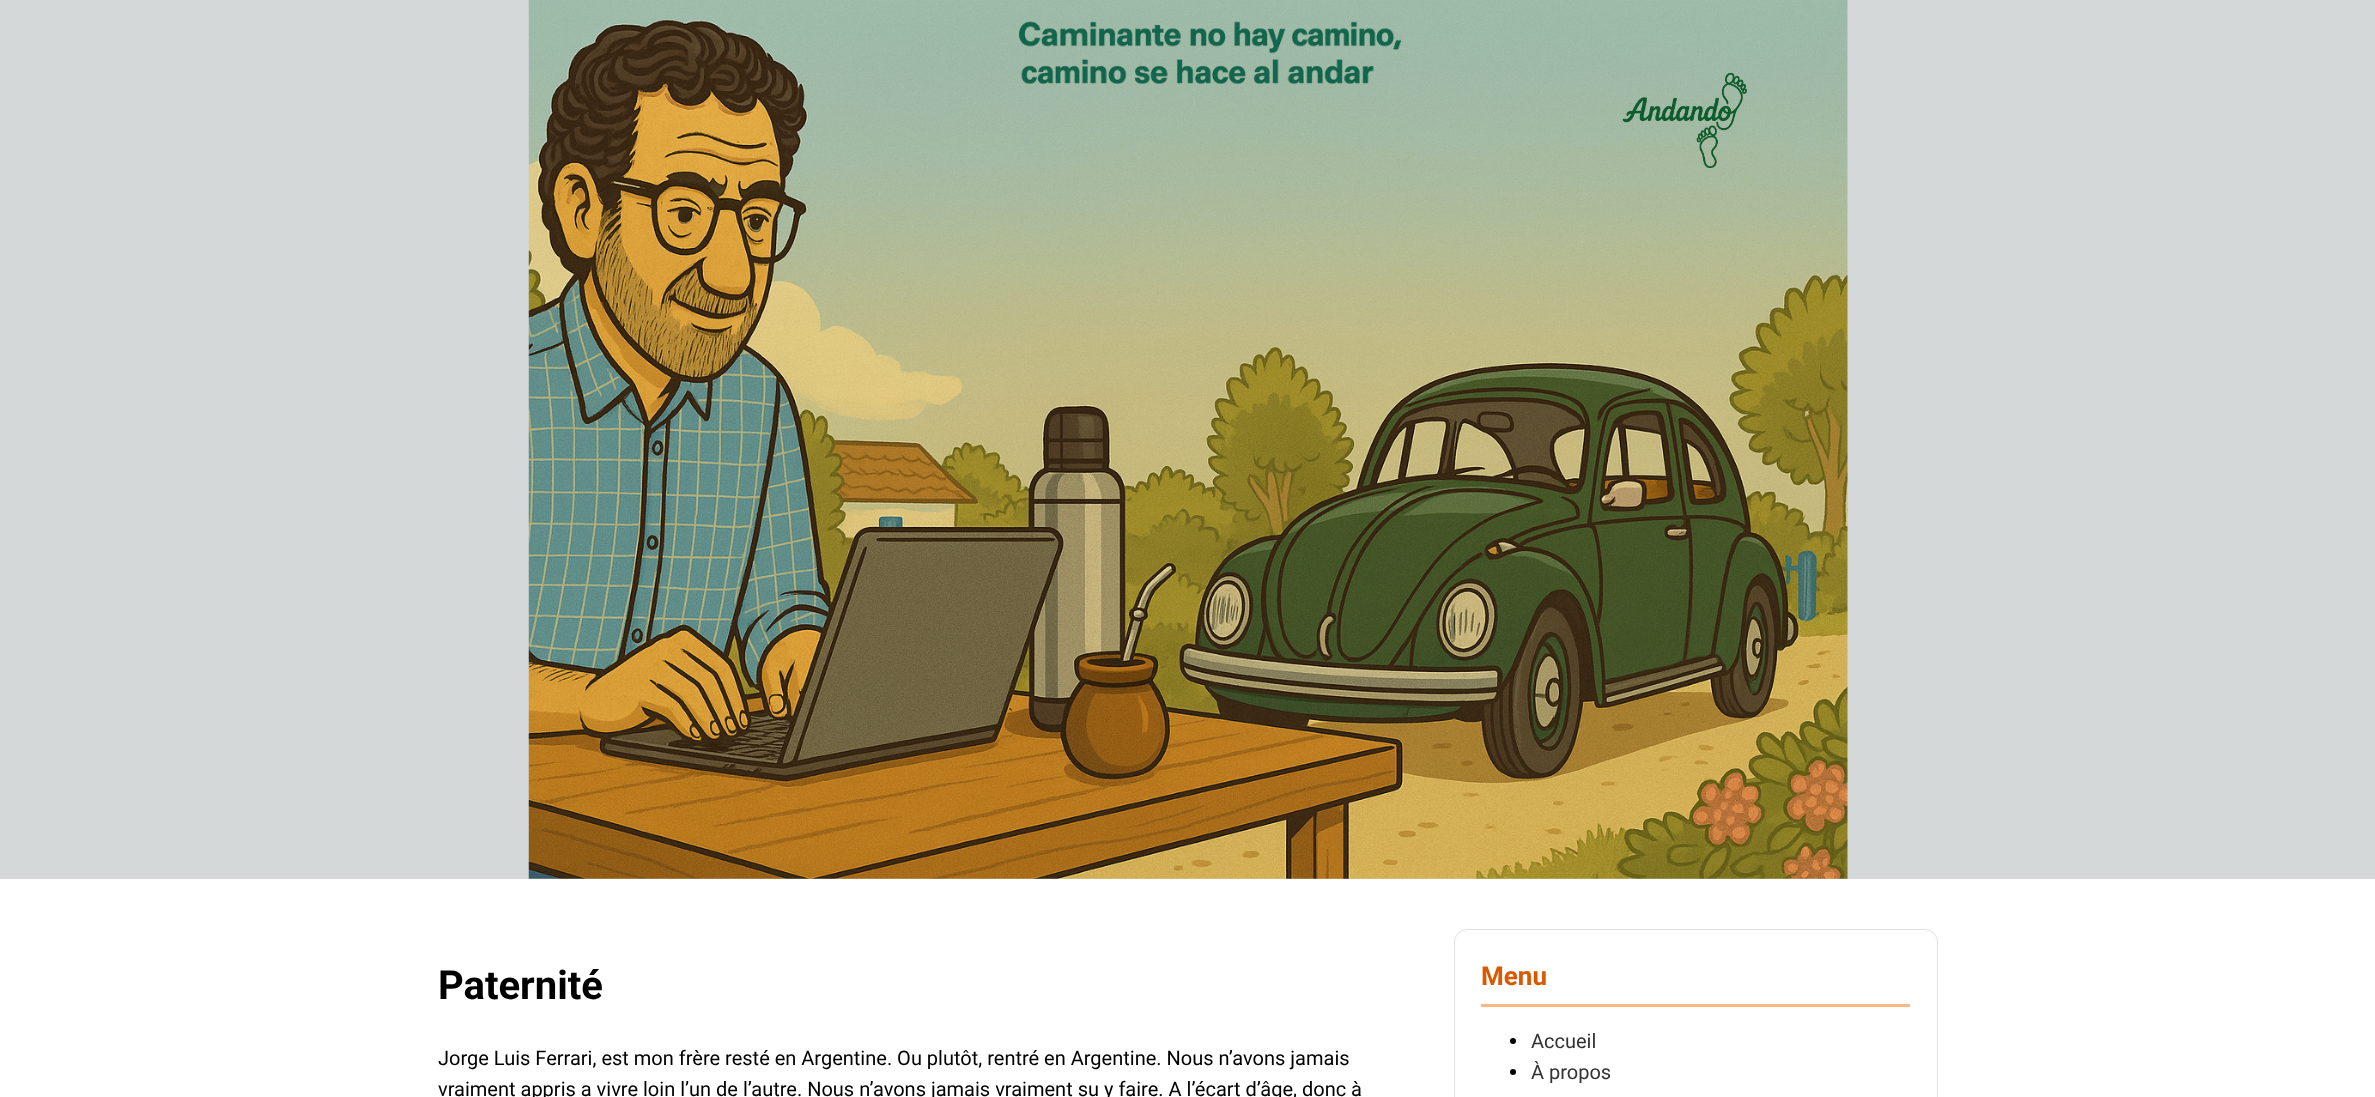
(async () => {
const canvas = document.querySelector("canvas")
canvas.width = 2375
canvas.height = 1097
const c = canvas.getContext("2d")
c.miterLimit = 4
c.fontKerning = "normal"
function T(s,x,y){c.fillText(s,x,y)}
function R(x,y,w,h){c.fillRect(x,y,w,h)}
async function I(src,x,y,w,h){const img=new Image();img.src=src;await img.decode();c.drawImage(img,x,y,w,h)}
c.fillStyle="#fff"
R(0,0,2375,1097)
c.fillStyle="#d5d8d9"
R(0,0,2375,879)
await I("1.png",528,0,1320,879)
await I("2.png",1622,72,125,96)
c.font="bold 40px Roboto"
c.fillStyle="#000"
T("Paternité",438,999)
c.font="20px Roboto"
T("Jorge Luis Ferrari, est mon frère resté en Argentine. Ou plutôt, rentré en Argentine. Nous n’avons jamais",438,1065)
T("vraiment appris a vivre loin l’un de l’autre. Nous n’avons jamais vraiment su y faire. A l’écart d’âge, donc à",438,1096)
c.beginPath()
c.roundRect(1454.5,929.5,483,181,12.5)
c.strokeStyle="#e1e1e1"
c.stroke()
c.fillStyle="#ffb680"
R(1481,1004,429,3)
c.font="bold 26px Roboto"
c.fillStyle="#d95900"
T("Menu",1481,985)
c.fillStyle="#000"
c.beginPath()
c.arc(1513,1041,3,0,7)
c.fill()
c.font="20px Roboto"
c.fillStyle="#333"
T("Accueil",1531,1048)
c.fillStyle="#000"
c.beginPath()
c.arc(1513,1072,3,0,7)
c.fill()
c.fillStyle="#333"
T("À propos",1531,1079)
})()
